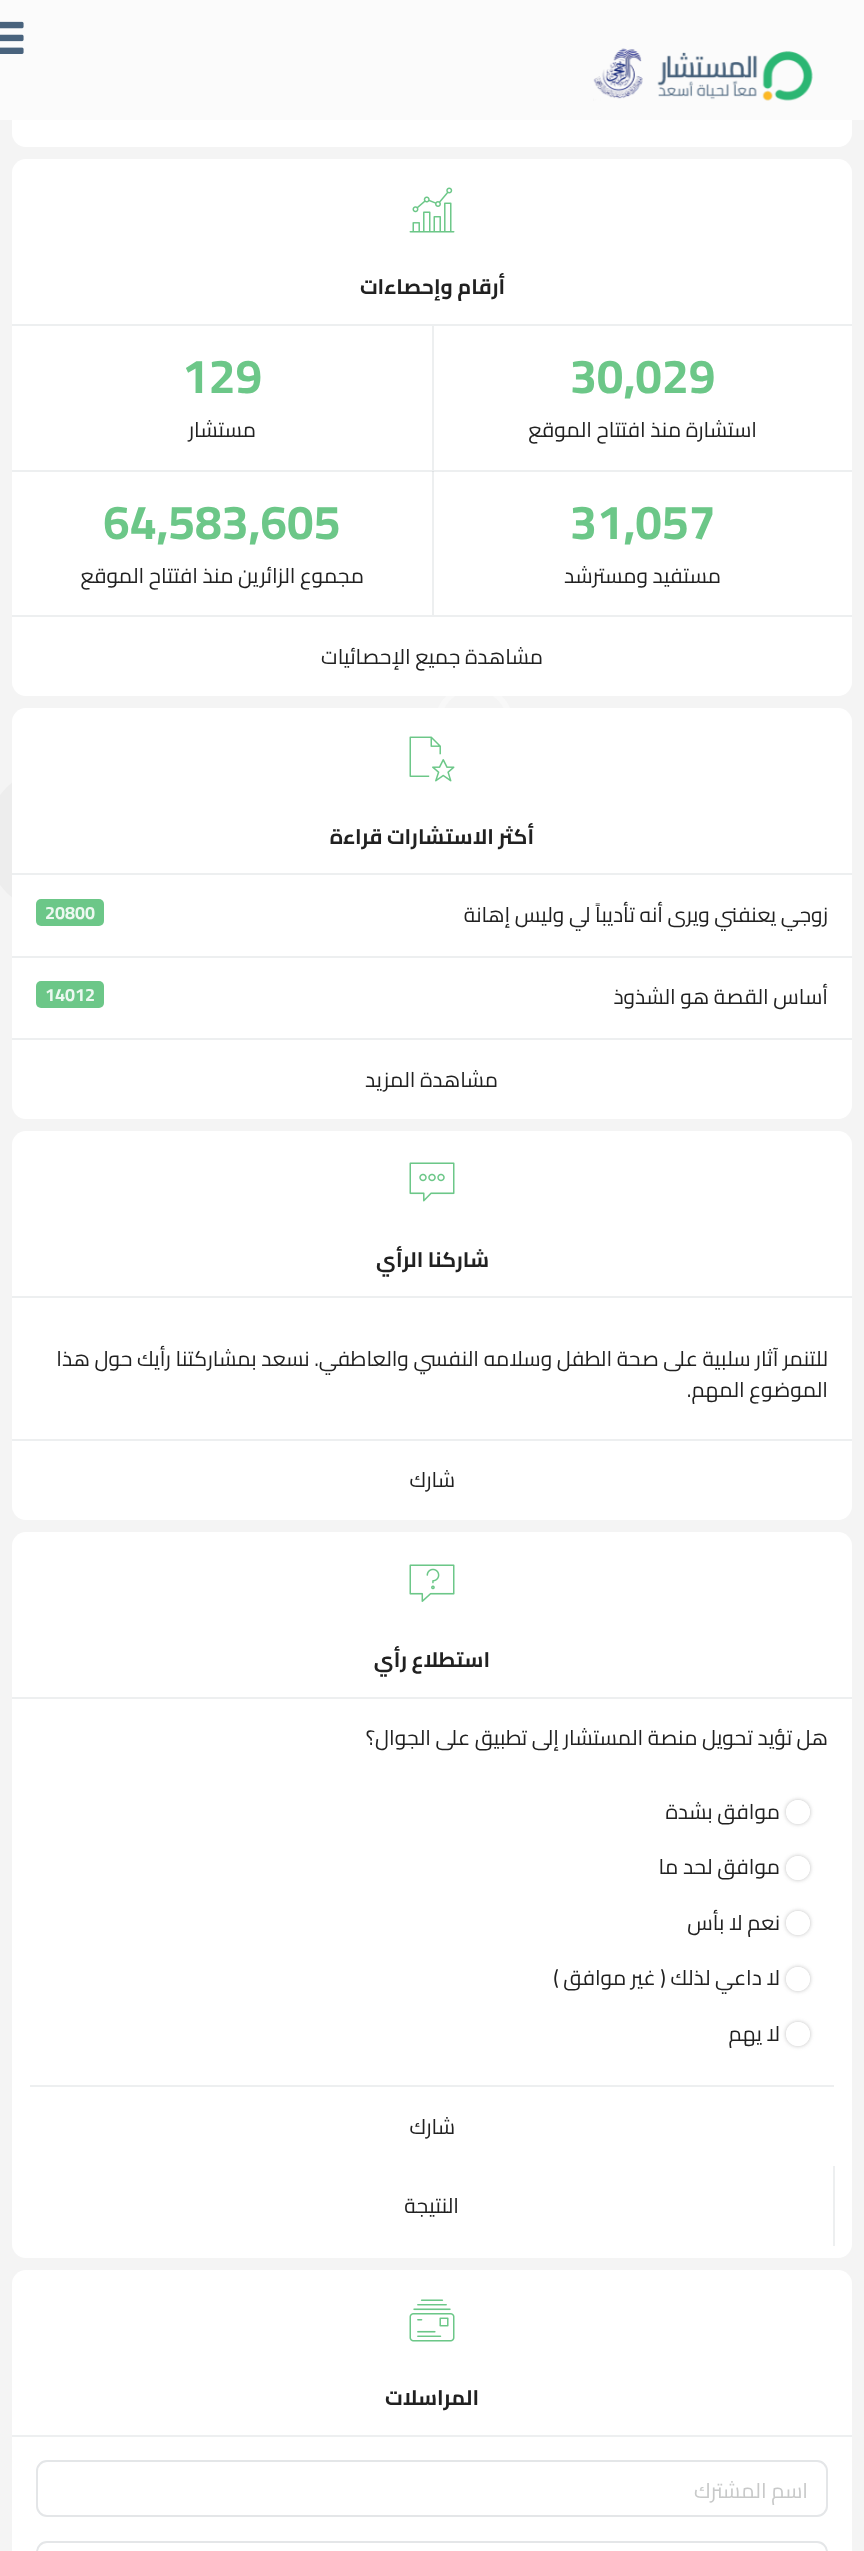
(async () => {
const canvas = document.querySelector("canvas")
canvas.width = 864
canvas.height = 2551
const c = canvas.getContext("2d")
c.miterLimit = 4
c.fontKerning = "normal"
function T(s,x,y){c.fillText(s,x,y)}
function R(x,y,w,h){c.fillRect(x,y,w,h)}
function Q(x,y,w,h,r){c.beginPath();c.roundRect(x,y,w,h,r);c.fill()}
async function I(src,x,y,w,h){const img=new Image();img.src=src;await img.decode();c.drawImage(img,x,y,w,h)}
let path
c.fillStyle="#f4f4f4"
R(0,0,864,2551)
c.fillStyle="#fff"
Q(12,-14,840,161,14)
c.fillStyle="#fbfbfb"
R(0,0,864,120)
await I("1.png",0,21,24,33)
await I("2.png",593,48,220,53)
c.beginPath()
c.arc(474,723,36,0,7)
c.strokeStyle="#f8f8f8"
c.lineWidth=6
c.stroke()
c.fillStyle="#fff"
Q(12,159,840,537,14)
c.fillStyle="#edeff0"
R(432,471,2,144)
await I("3.png",409,187,46,46)
c.direction="rtl"
c.font="bold 21px Cairo"
c.fillStyle="#212121"
T("أرقام وإحصاءات",505,294)
c.fillStyle="#edeff0"
R(12,324,840,2)
R(12,470,840,2)
c.fillStyle="#dee1e3"
R(432,471,2,1)
c.fillStyle="#edeff0"
R(432,326,2,144)
c.direction="ltr"
c.font="bold 48px Cairo"
c.fillStyle="#6cc788"
T("30,029",570,393)
c.direction="rtl"
c.font="21px Cairo"
c.fillStyle="#212121"
T("استشارة منذ افتتاح الموقع",757,437)
c.direction="ltr"
c.font="bold 48px Cairo"
c.fillStyle="#6cc788"
T("129",182,393)
c.direction="rtl"
c.font="21px Cairo"
c.fillStyle="#212121"
T("مستشار",256,437)
c.fillStyle="#edeff0"
R(12,615,840,2)
c.direction="ltr"
c.font="bold 48px Cairo"
c.fillStyle="#6cc788"
T("31,057",570,539)
c.direction="rtl"
c.font="21px Cairo"
c.fillStyle="#212121"
T("مستفيد",721,583)
T("ومسترشد",648,583)
c.direction="ltr"
c.font="bold 48px Cairo"
c.fillStyle="#6cc788"
T("64,583,605",103,539)
c.direction="rtl"
c.font="21px Cairo"
c.fillStyle="#212121"
T("مجموع الزائرين منذ افتتاح الموقع",364,583)
T("مشاهدة جميع الإحصائيات",543,664)
c.fillStyle="#ededed"
c.beginPath()
c.arc(60,840,75,0,7)
c.fill()
c.fillStyle="#fff"
Q(12,708,840,411,14)
await I("4.png",409,736,46,46)
c.font="bold 21px Cairo"
c.fillStyle="#212121"
T("أكثر الاستشارات قراءة",534,844)
c.fillStyle="#edeff0"
R(12,873,840,2)
c.font="21px Cairo"
c.fillStyle="#212121"
T("زوجي يعنفني ويرى أنه تأديباً لي وليس إهانة",828,922)
c.fillStyle="#6cc788"
Q(36,899,68,27,5)
c.direction="ltr"
c.font="bold 18px Cairo"
c.fillStyle="#ecf8f0"
T("20800",45,919)
c.fillStyle="#edeff0"
R(12,956,840,2)
c.direction="rtl"
c.font="21px Cairo"
c.fillStyle="#212121"
T("أساس القصة هو الشذوذ",828,1004)
c.fillStyle="#6cc788"
Q(36,981,68,27,5)
c.direction="ltr"
c.font="bold 18px Cairo"
c.fillStyle="#ecf8f0"
T("14012",45,1001)
c.fillStyle="#edeff0"
R(12,1038,840,2)
c.direction="rtl"
c.font="21px Cairo"
c.fillStyle="#212121"
T("مشاهدة المزيد",498,1087)
c.fillStyle="#fff"
Q(12,1131,840,389,14)
await I("5.png",409,1162,46,40)
c.font="bold 21px Cairo"
c.fillStyle="#212121"
T("شاركنا الرأي",489,1267)
c.fillStyle="#edeff0"
R(12,1296,840,2)
c.font="21px Cairo"
c.fillStyle="#212121"
T("للتنمر آثار سلبية على صحة الطفل وسلامه النفسي والعاطفي. نسعد بمشاركتنا رأيك حول هذا",828,1366)
T("الموضوع المهم.",828,1397)
c.fillStyle="#edeff0"
R(12,1439,840,2)
c.fillStyle="#212121"
T("شارك",455,1487)
c.fillStyle="#fff"
Q(12,1532,840,726,14)
await I("6.png",409,1564,46,38)
c.font="bold 21px Cairo"
c.fillStyle="#212121"
T("استطلاع رأي",490,1667)
c.fillStyle="#edeff0"
R(12,1697,840,2)
c.font="21px Cairo"
c.fillStyle="#212121"
T("هل تؤيد تحويل منصة المستشار إلى تطبيق على الجوال؟",828,1745)
c.save()
path = new Path2D("M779 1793h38v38h-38zm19 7c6.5 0 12 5.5 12 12c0 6.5-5.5 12-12 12c-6.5 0-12-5.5-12-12c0-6.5 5.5-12 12-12z")
c.clip(path,"evenodd")
c.fillStyle="#42424259"
c.filter="blur(2px)"
c.beginPath()
c.roundRect(786,1800,24,24,12)
c.fill()
c.filter="none"
c.restore()
c.beginPath()
c.arc(798,1812,11,0,7)
c.strokeStyle="#fff"
c.lineWidth=2
c.stroke()
T("موافق بشدة",780,1819)
c.save()
path = new Path2D("M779 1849h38v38h-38zm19 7c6.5 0 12 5.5 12 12c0 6.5-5.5 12-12 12c-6.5 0-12-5.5-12-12c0-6.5 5.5-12 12-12z")
c.clip(path,"evenodd")
c.fillStyle="#42424259"
c.filter="blur(2px)"
c.beginPath()
c.roundRect(786,1856,24,24,12)
c.fill()
c.filter="none"
c.restore()
c.beginPath()
c.arc(798,1868,11,0,7)
c.stroke()
T("موافق لحد ما",780,1874)
c.save()
path = new Path2D("M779 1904h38v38h-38zm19 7c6.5 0 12 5.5 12 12c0 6.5-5.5 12-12 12c-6.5 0-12-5.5-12-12c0-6.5 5.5-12 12-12z")
c.clip(path,"evenodd")
c.fillStyle="#42424259"
c.filter="blur(2px)"
c.beginPath()
c.roundRect(786,1911,24,24,12)
c.fill()
c.filter="none"
c.restore()
c.beginPath()
c.arc(798,1923,11,0,7)
c.stroke()
T("نعم لا بأس",780,1930)
c.save()
path = new Path2D("M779 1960h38v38h-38zm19 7c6.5 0 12 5.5 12 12c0 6.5-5.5 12-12 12c-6.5 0-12-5.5-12-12c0-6.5 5.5-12 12-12z")
c.clip(path,"evenodd")
c.fillStyle="#42424259"
c.filter="blur(2px)"
c.beginPath()
c.roundRect(786,1967,24,24,12)
c.fill()
c.filter="none"
c.restore()
c.beginPath()
c.arc(798,1979,11,0,7)
c.stroke()
T("لا داعي لذلك ( غير موافق )",780,1985)
c.save()
path = new Path2D("M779 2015h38v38h-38zm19 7c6.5 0 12 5.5 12 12c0 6.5-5.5 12-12 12c-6.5 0-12-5.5-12-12c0-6.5 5.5-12 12-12z")
c.clip(path,"evenodd")
c.fillStyle="#42424259"
c.filter="blur(2px)"
c.beginPath()
c.roundRect(786,2022,24,24,12)
c.fill()
c.filter="none"
c.restore()
c.beginPath()
c.arc(798,2034,11,0,7)
c.stroke()
T("لا يهم",780,2041)
c.fillStyle="#edeff0"
R(30,2085,804,2)
c.fillStyle="#212121"
T("شارك",455,2134)
c.fillStyle="#edeff0"
R(833,2166,2,80)
c.fillStyle="#212121"
T("النتيجة",459,2213)
c.fillStyle="#fff"
Q(12,2270,840,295,14)
await I("7.png",409,2299,46,43)
c.font="bold 21px Cairo"
c.fillStyle="#212121"
T("المراسلات",479,2405)
c.fillStyle="#edeff0"
R(12,2435,840,2)
c.beginPath()
c.roundRect(37,2461,790,55,10)
c.strokeStyle="#e4e6e8"
c.stroke()
c.font="21px Cairo"
c.fillStyle="#c8c9c9"
T("اسم المشترك",808,2498)
c.beginPath()
c.roundRect(37,2542,790,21,10)
c.stroke()
})()
